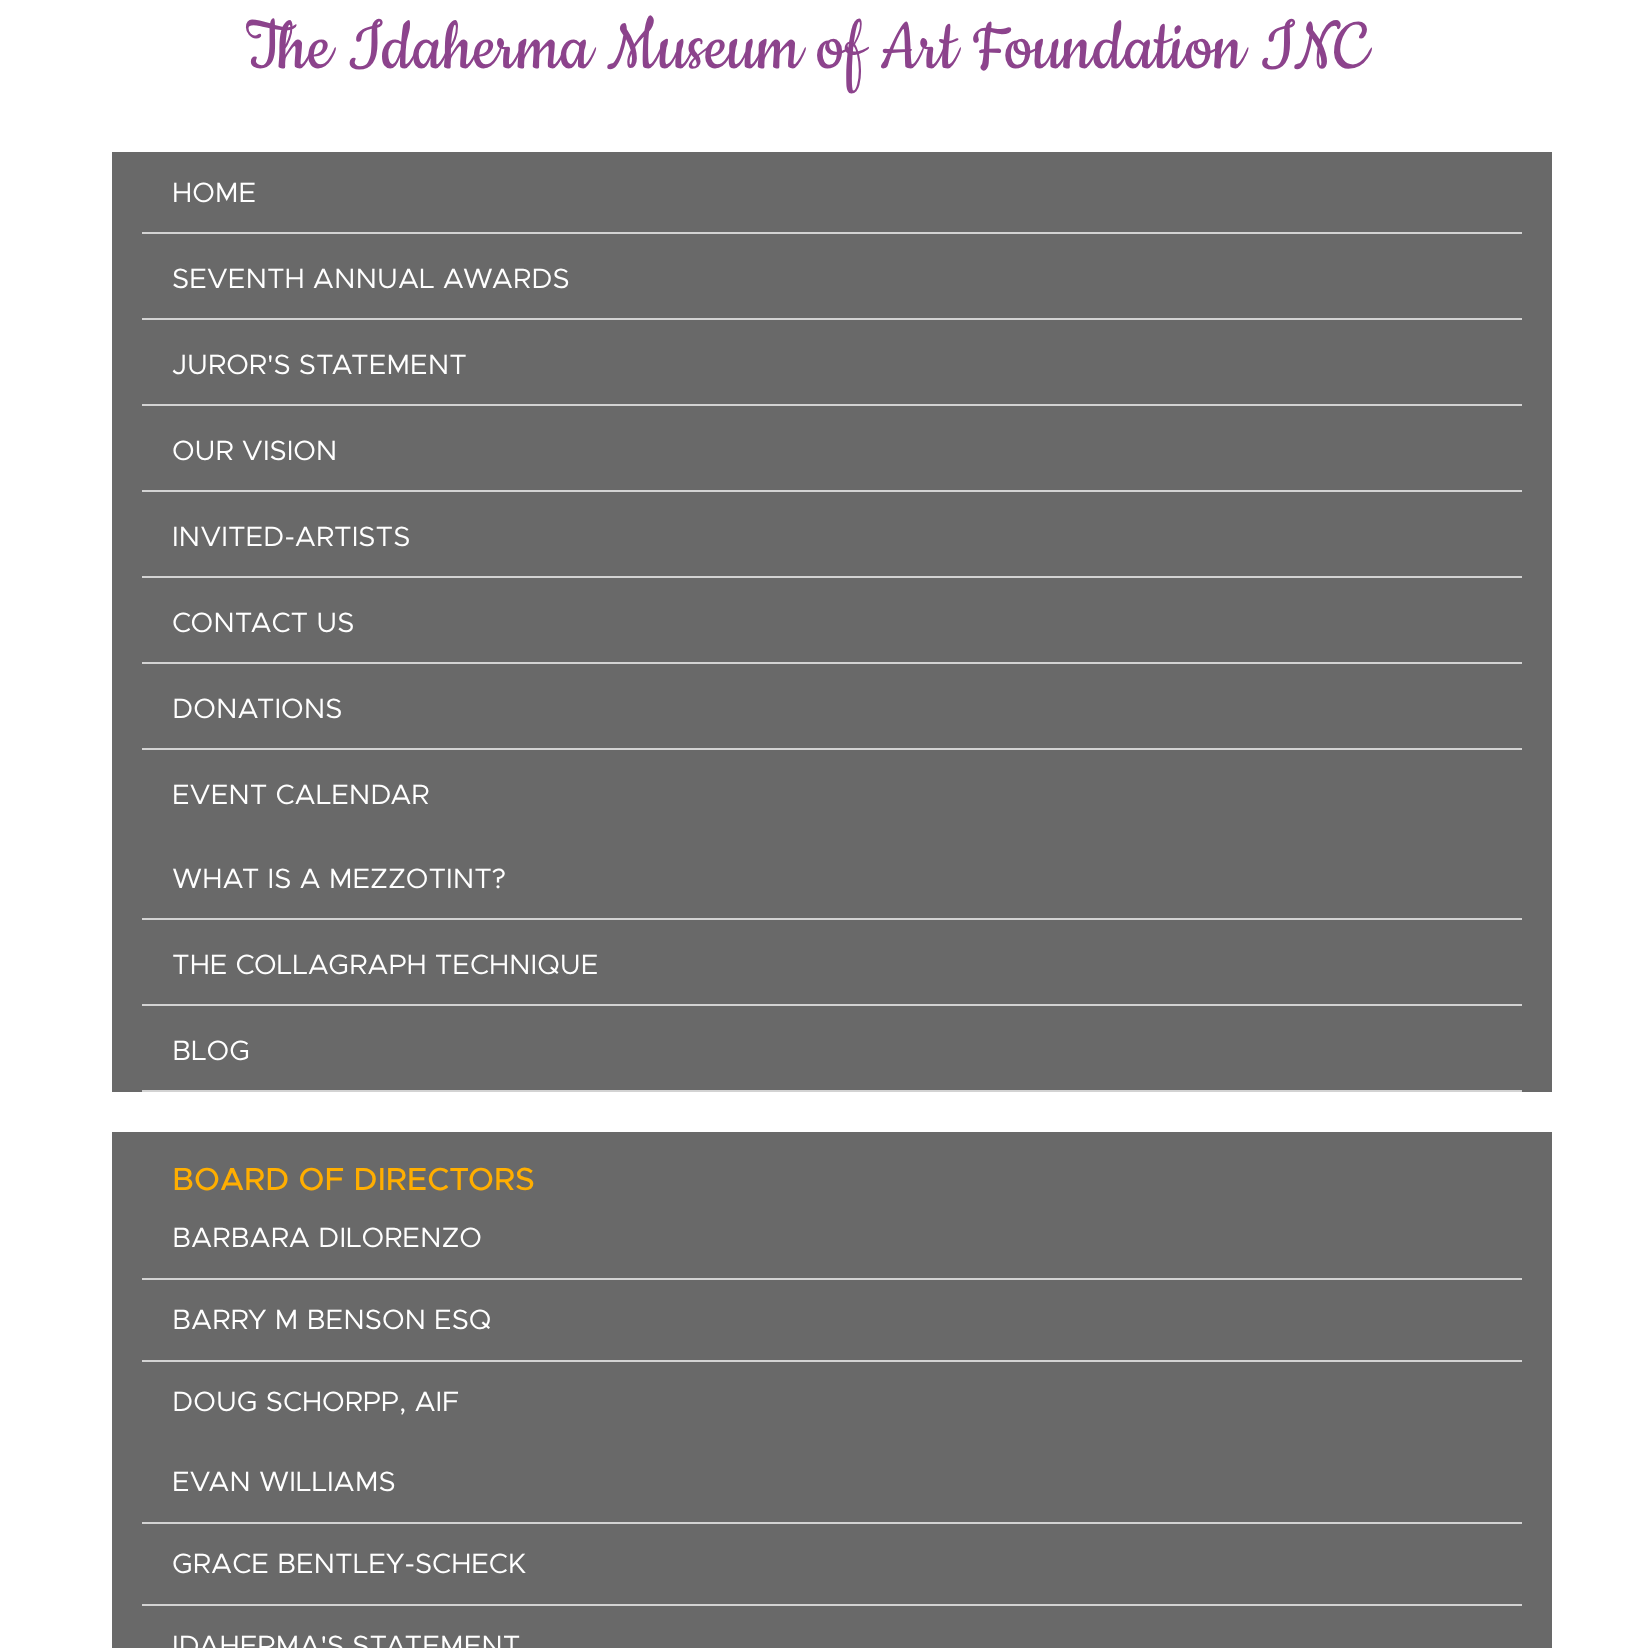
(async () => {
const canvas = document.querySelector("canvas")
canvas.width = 1641
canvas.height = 1648
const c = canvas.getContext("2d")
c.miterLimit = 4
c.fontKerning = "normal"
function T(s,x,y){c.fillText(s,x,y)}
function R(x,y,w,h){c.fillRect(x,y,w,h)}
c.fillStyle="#fff"
R(0,0,1641,1648)
c.font="80px Cookie"
c.fillStyle="#8c438c"
T("The Idaherma Museum of Art Foundation INC",245,68)
c.fillStyle="#696969"
R(112,152,1440,940)
c.fillStyle="#d3d3d3"
R(142,232,1380,2)
c.font="28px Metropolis"
c.fillStyle="#fff"
T("HOME",172,202)
c.fillStyle="#d3d3d3"
R(142,318,1380,2)
c.fillStyle="#fff"
T("SEVENTH ANNUAL AWARDS",172,288)
c.fillStyle="#d3d3d3"
R(142,404,1380,2)
c.fillStyle="#fff"
T("JUROR'S STATEMENT",172,374)
c.fillStyle="#d3d3d3"
R(142,490,1380,2)
c.fillStyle="#fff"
T("OUR VISION",172,460)
c.fillStyle="#d3d3d3"
R(142,576,1380,2)
c.fillStyle="#fff"
T("INVITED-ARTISTS",172,546)
c.fillStyle="#d3d3d3"
R(142,662,1380,2)
c.fillStyle="#fff"
T("CONTACT US",172,632)
c.fillStyle="#d3d3d3"
R(142,748,1380,2)
c.fillStyle="#fff"
T("DONATIONS",172,718)
T("EVENT CALENDAR",172,804)
c.fillStyle="#d3d3d3"
R(142,918,1380,2)
c.fillStyle="#fff"
T("WHAT IS A MEZZOTINT?",172,888)
c.fillStyle="#d3d3d3"
R(142,1004,1380,2)
c.fillStyle="#fff"
T("THE COLLAGRAPH TECHNIQUE",172,974)
c.fillStyle="#d3d3d3"
R(142,1090,1380,2)
c.fillStyle="#fff"
T("BLOG",172,1060)
c.fillStyle="#696969"
R(112,1132,1440,516)
c.font="500 32px Metropolis"
c.fillStyle="#ffae00"
T("BOARD OF DIRECTORS",172,1190)
c.fillStyle="#d3d3d3"
R(142,1278,1380,2)
c.font="28px Metropolis"
c.fillStyle="#fff"
T("BARBARA DILORENZO",172,1247)
c.fillStyle="#d3d3d3"
R(142,1360,1380,2)
c.fillStyle="#fff"
T("BARRY M BENSON ESQ",172,1329)
T("DOUG SCHORPP, AIF",172,1411)
c.fillStyle="#d3d3d3"
R(142,1522,1380,2)
c.fillStyle="#fff"
T("EVAN WILLIAMS",172,1491)
c.fillStyle="#d3d3d3"
R(142,1604,1380,2)
c.fillStyle="#fff"
T("GRACE BENTLEY-SCHECK",172,1573)
T("IDAHERMA'S STATEMENT",172,1655)
})()
